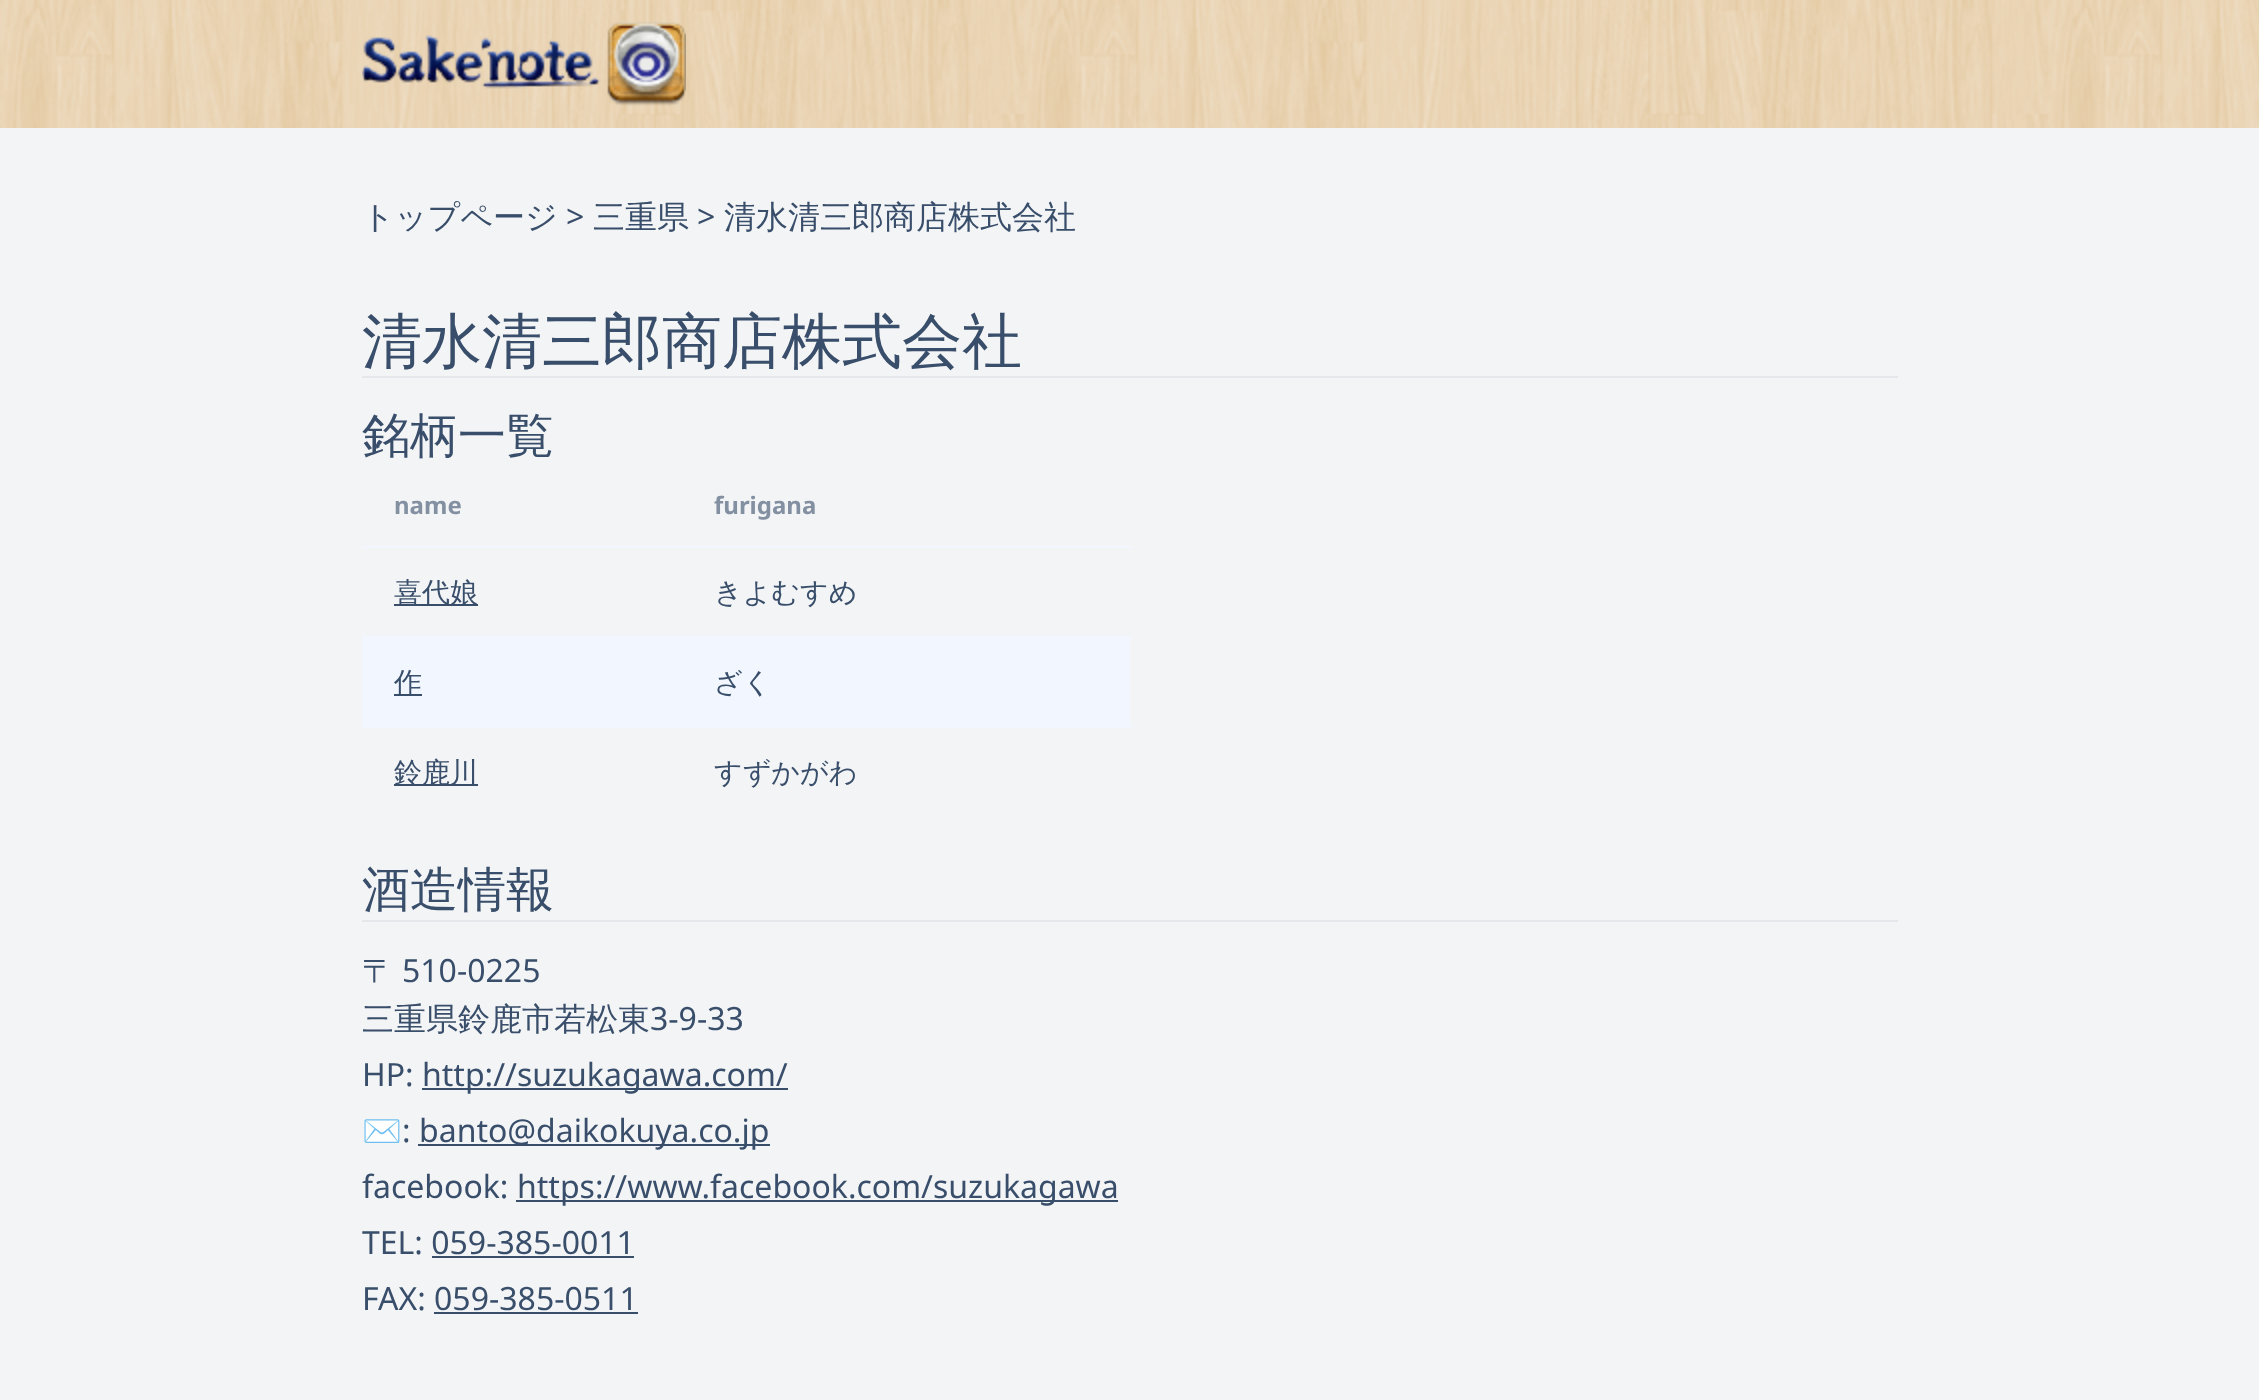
(async () => {
const canvas = document.querySelector("canvas")
canvas.width = 2259
canvas.height = 1400
const c = canvas.getContext("2d")
c.miterLimit = 4
c.fontKerning = "normal"
function T(s,x,y){c.fillText(s,x,y)}
function R(x,y,w,h){c.fillRect(x,y,w,h)}
async function I(src,x,y,w,h){const img=new Image();img.src=src;await img.decode();c.drawImage(img,x,y,w,h)}
c.fillStyle="#f3f4f6"
R(0,0,2259,1400)
await I("1.png",0,0,2259,128)
await I("2.png",362,22,324,84)
c.font="500 32px WenQuanYi Zen Hei"
c.fillStyle="#394e6a"
T("トップページ",362,228)
c.font="32px Noto Sans"
T(">",566,228)
c.font="500 32px WenQuanYi Zen Hei"
T("三重県",593,228)
c.font="32px Noto Sans"
T(">",697,228)
c.font="500 32px WenQuanYi Zen Hei"
T("清水清三郎商店株式会社",724,228)
c.fillStyle="#e5e7eb"
R(362,376,1536,2)
c.font="500 60px WenQuanYi Zen Hei"
c.fillStyle="#394e6a"
T("清水清三郎商店株式会社",362,362)
c.font="500 48px WenQuanYi Zen Hei"
T("銘柄一覧",362,452)
c.fillStyle="#f2f7ff"
R(362,546,770,2)
c.font="bold 24px Noto Sans"
c.fillStyle="#8390a2"
T("name",394,514)
T("furigana",714,514)
c.fillStyle="#f2f7ff"
R(362,636,770,2)
c.fillStyle="#394e6a"
R(394,604,84,2)
c.font="500 28px WenQuanYi Zen Hei"
T("喜代娘",394,602)
T("きよむすめ",714,602)
c.fillStyle="#f2f7ff"
R(362,638,768,88)
R(362,726,770,2)
c.fillStyle="#394e6a"
R(394,694,28,2)
T("作",394,692)
T("ざく",714,692)
R(394,784,84,2)
T("鈴鹿川",394,782)
T("すずかがわ",714,782)
c.fillStyle="#e5e7eb"
R(362,920,1536,2)
c.font="500 48px WenQuanYi Zen Hei"
c.fillStyle="#394e6a"
T("酒造情報",362,906)
c.font="500 32px WenQuanYi Zen Hei"
T("〒",362,982)
c.font="32px Noto Sans"
T("510-0225",402,982)
c.font="500 32px WenQuanYi Zen Hei"
T("三重県鈴鹿市若松東",362,1030)
c.font="32px Noto Sans"
T("3-9-33",650,1030)
T("HP:",362,1086)
R(422,1088,366,2)
T("http://suzukagawa.com/",422,1086)
c.font="32px Noto Color Emoji"
T("✉️",362,1142)
c.font="32px Noto Sans"
T(":",402,1142)
R(418,1144,352,2)
T("banto@daikokuya.co.jp",419,1142)
T("facebook:",362,1198)
R(516,1200,602,2)
T("https://www.facebook.com/suzukagawa",517,1198)
T("TEL: ︎059-385-0011",362,1254)
R(432,1256,202,2)
T("FAX: 059-385-0511",362,1310)
R(434,1312,204,2)
})()
